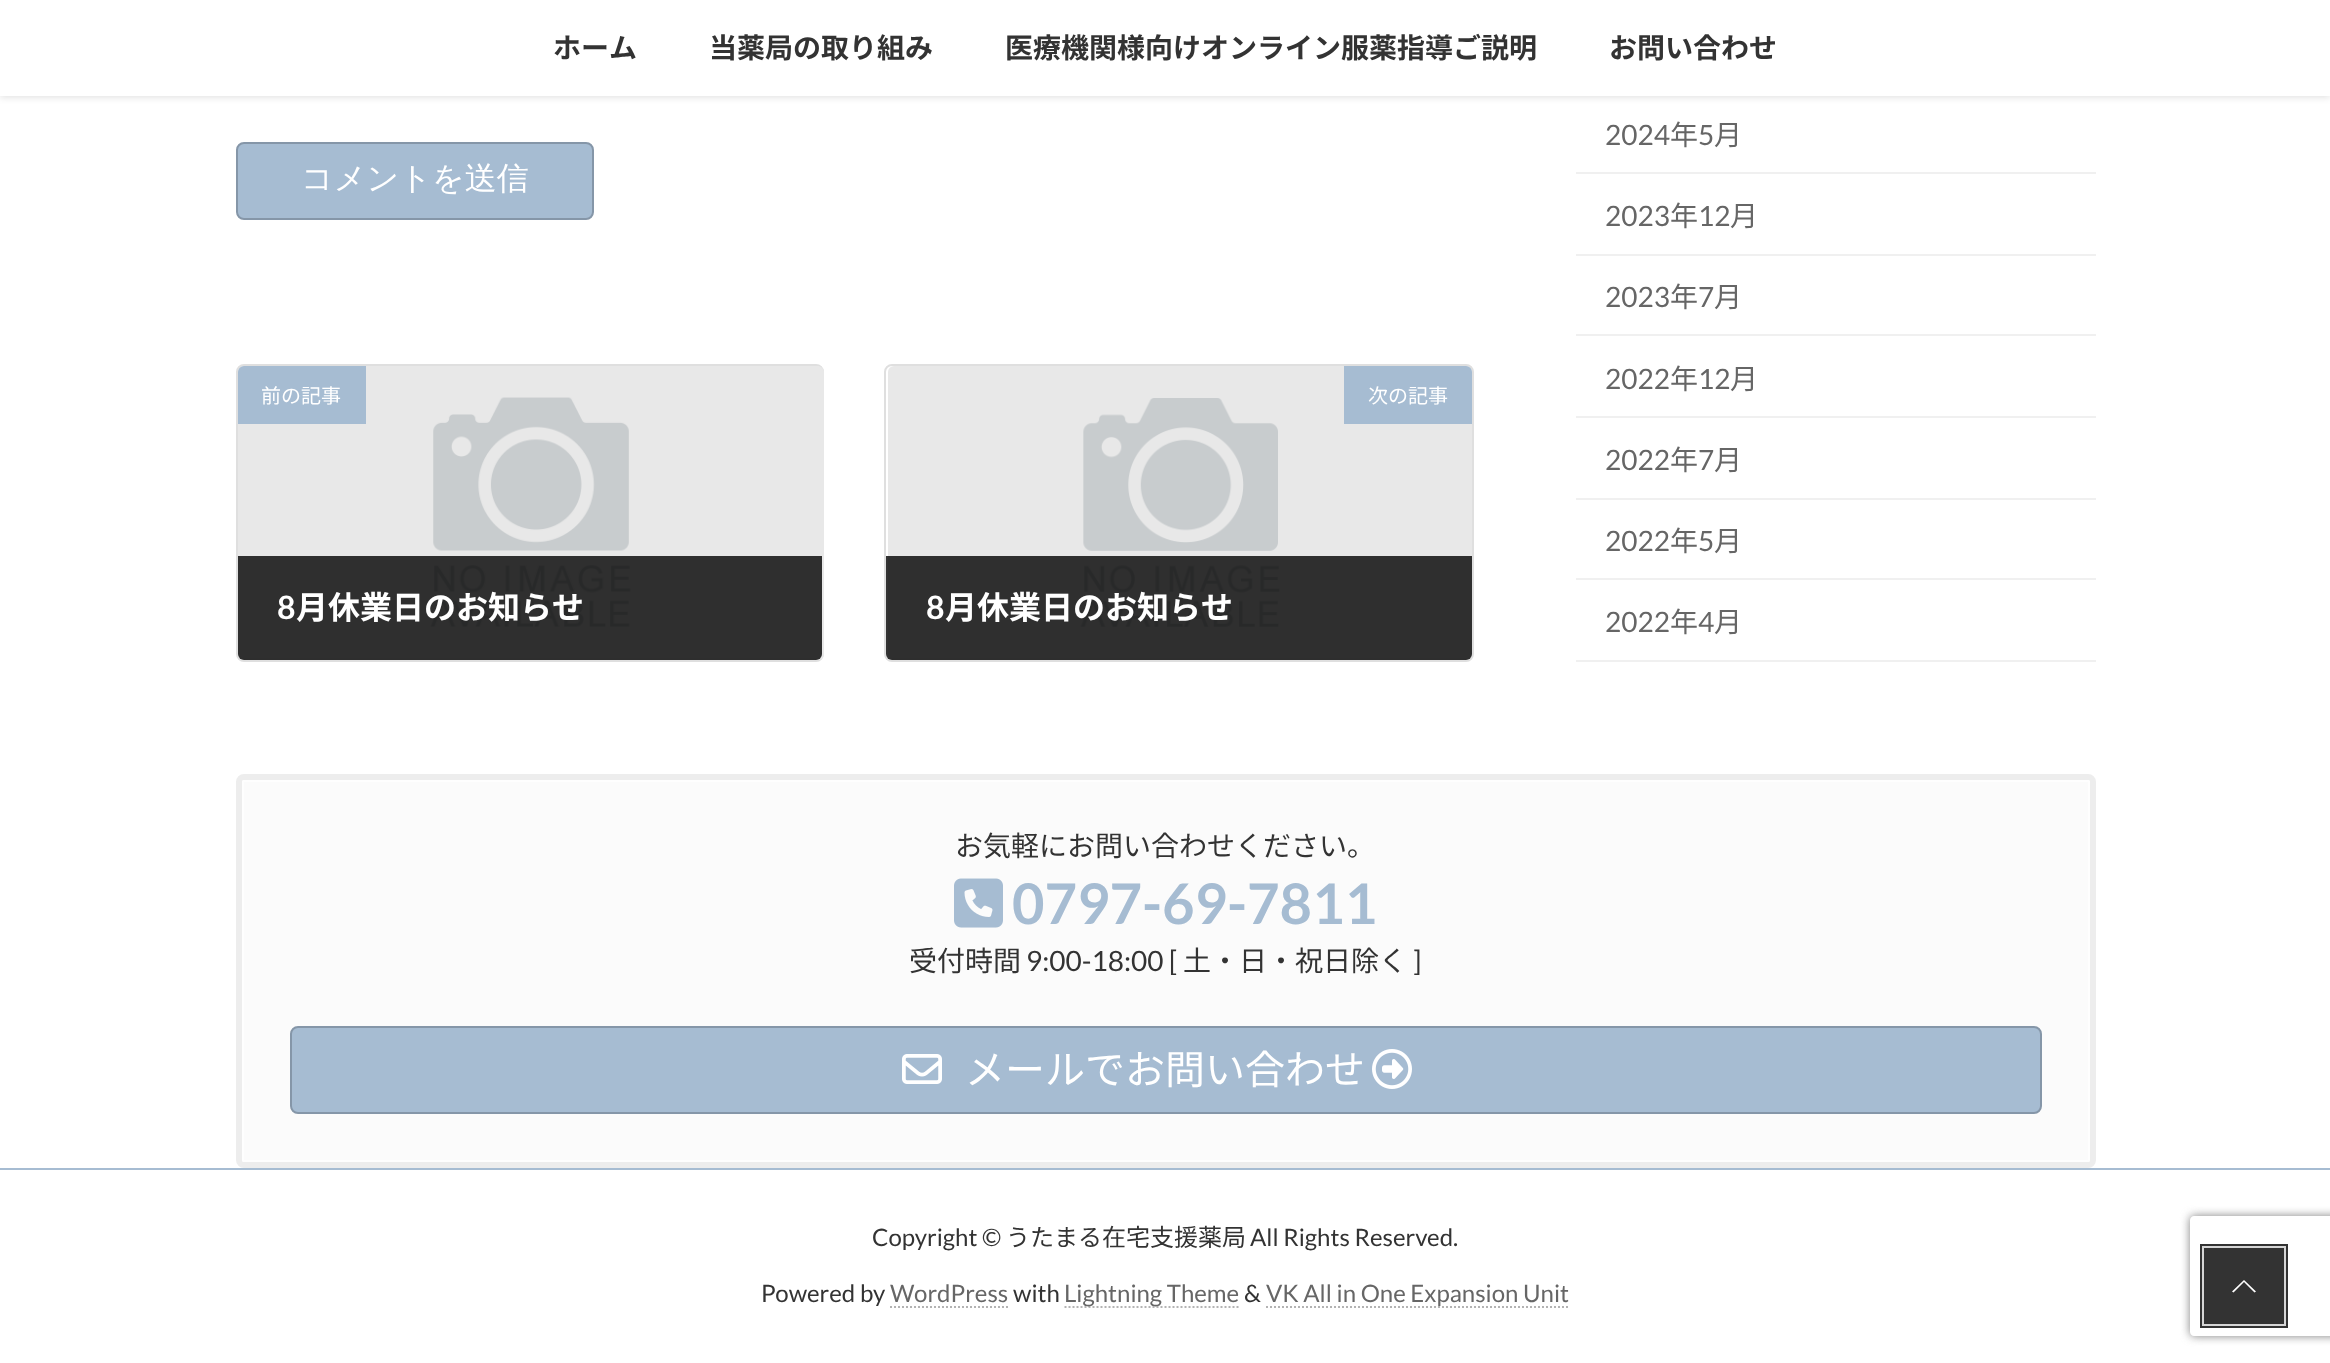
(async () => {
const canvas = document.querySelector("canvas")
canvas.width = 2330
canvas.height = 1363
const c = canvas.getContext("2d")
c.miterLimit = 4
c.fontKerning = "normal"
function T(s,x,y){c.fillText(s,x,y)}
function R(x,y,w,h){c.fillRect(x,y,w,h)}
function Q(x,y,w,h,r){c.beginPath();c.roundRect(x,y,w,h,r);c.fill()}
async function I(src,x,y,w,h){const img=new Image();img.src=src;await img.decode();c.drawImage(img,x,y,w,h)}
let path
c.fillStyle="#fff"
R(0,0,2330,1363)
c.fillStyle="#0000001a"
c.filter="blur(3px)"
c.beginPath()
c.rect(0,2,2330,96)
c.fill()
c.filter="none"
c.fillStyle="#fff"
R(0,0,2330,96)
c.font="bold 28px Noto Sans JP"
c.fillStyle="#333"
T("ホーム",553,58)
T("当薬局の取り組み",709,58)
T("医療機関様向けオンライン服薬指導ご説明",1005,58)
T("お問い合わせ",1609,58)
c.fillStyle="#a6bcd2"
c.beginPath()
c.roundRect(237,143,356,76,7)
c.fill()
c.strokeStyle="#8596a8"
c.lineWidth=2
c.stroke()
c.font="500 32px WenQuanYi Zen Hei"
c.fillStyle="#fff"
T("コメントを送信",301,189)
c.beginPath()
c.roundRect(237,365,586,296,7)
c.strokeStyle="#dfdfdf"
c.stroke()
await I("1.png",238,366,586,294)
c.save()
c.beginPath()
c.roundRect(238,366,584,294,6)
c.clip()
c.fillStyle="#e5e5e5"
R(238,658,584,2)
c.restore()
c.fillStyle="#a6bcd2"
c.beginPath()
c.roundRect(238,366,128,58,[6,0,0,0])
c.fill()
c.font="20px Noto Sans JP"
c.fillStyle="#fff"
T("前の記事",261,403)
c.fillStyle="#000000cc"
c.beginPath()
c.roundRect(238,556,584,104,[0,0,6,6])
c.fill()
c.font="bold 32px Lato"
c.fillStyle="#fff"
T("8",277,619)
c.font="bold 32px Noto Sans JP"
T("月休業日のお知らせ",296,619)
c.beginPath()
c.roundRect(885,365,588,296,7)
c.stroke()
await I("2.png",888,366,584,294)
c.save()
c.beginPath()
c.roundRect(886,366,586,294,6)
c.clip()
c.fillStyle="#e5e5e5"
R(886,658,586,2)
c.restore()
c.fillStyle="#a6bcd2"
c.beginPath()
c.roundRect(1344,366,128,58,[0,6,0,0])
c.fill()
c.font="20px Noto Sans JP"
c.fillStyle="#fff"
T("次の記事",1368,403)
c.fillStyle="#000000cc"
c.beginPath()
c.roundRect(886,556,586,104,[0,0,6,6])
c.fill()
c.font="bold 32px Lato"
c.fillStyle="#fff"
T("8",926,619)
c.font="bold 32px Noto Sans JP"
T("月休業日のお知らせ",945,619)
c.fillStyle="#f0f0f0"
R(1576,172,520,2)
c.font="28px Lato"
c.fillStyle="#666"
T("2024",1605,145)
c.font="28px Noto Sans JP"
T("年",1670,145)
c.font="28px Lato"
T("5",1698,145)
c.font="28px Noto Sans JP"
T("月",1714,145)
c.fillStyle="#f0f0f0"
R(1576,254,520,2)
c.font="28px Lato"
c.fillStyle="#666"
T("2023",1605,226)
c.font="28px Noto Sans JP"
T("年",1670,226)
c.font="28px Lato"
T("12",1698,226)
c.font="28px Noto Sans JP"
T("月",1730,226)
c.fillStyle="#f0f0f0"
R(1576,334,520,2)
c.font="28px Lato"
c.fillStyle="#666"
T("2023",1605,307)
c.font="28px Noto Sans JP"
T("年",1670,307)
c.font="28px Lato"
T("7",1698,307)
c.font="28px Noto Sans JP"
T("月",1714,307)
c.fillStyle="#f0f0f0"
R(1576,416,520,2)
c.font="28px Lato"
c.fillStyle="#666"
T("2022",1605,389)
c.font="28px Noto Sans JP"
T("年",1670,389)
c.font="28px Lato"
T("12",1698,389)
c.font="28px Noto Sans JP"
T("月",1730,389)
c.fillStyle="#f0f0f0"
R(1576,498,520,2)
c.font="28px Lato"
c.fillStyle="#666"
T("2022",1605,470)
c.font="28px Noto Sans JP"
T("年",1670,470)
c.font="28px Lato"
T("7",1698,470)
c.font="28px Noto Sans JP"
T("月",1714,470)
c.fillStyle="#f0f0f0"
R(1576,578,520,2)
c.font="28px Lato"
c.fillStyle="#666"
T("2022",1605,551)
c.font="28px Noto Sans JP"
T("年",1670,551)
c.font="28px Lato"
T("5",1698,551)
c.font="28px Noto Sans JP"
T("月",1714,551)
c.fillStyle="#f0f0f0"
R(1576,660,520,2)
c.font="28px Lato"
c.fillStyle="#666"
T("2022",1605,632)
c.font="28px Noto Sans JP"
T("年",1670,632)
c.font="28px Lato"
T("4",1698,632)
c.font="28px Noto Sans JP"
T("月",1714,632)
c.beginPath()
c.roundRect(239,777,1854,388,5)
c.strokeStyle="#ededed"
c.lineWidth=6
c.stroke()
c.fillStyle="#fbfbfb"
Q(242,780,1848,382,2)
c.fillStyle="#fefefe"
path = new Path2D("M244 780c-1 0-2 1-2 2v378c0 1 1 2 2 2h1844c1 0 2-1 2-2v-378c0-1-1-2-2-2zm0 2v378h1844v-378z")
c.fill(path,"evenodd")
c.fillStyle="#333"
T("お気軽にお問い合わせください。",955,856)
await I("3.png",954,878,49,50)
c.font="bold 56px Lato"
c.fillStyle="#a6bcd2"
T("0797-69-7811",1012,924)
c.font="28px Noto Sans JP"
c.fillStyle="#333"
T("受付時間",909,971)
c.font="28px Lato"
T("9:00-18:00 [",1026,971)
c.font="28px Noto Sans JP"
T("土・日・祝日除く",1183,971)
c.font="28px Lato"
T("]",1413,971)
c.fillStyle="#a6bcd2"
c.beginPath()
c.roundRect(291,1027,1750,86,7)
c.fill()
c.strokeStyle="#8596a8"
c.lineWidth=2
c.stroke()
await I("4.png",902,1054,40,30)
c.font="40px Noto Sans JP"
c.fillStyle="#fff"
T("メールでお問い合わせ",965,1084)
await I("5.png",1372,1049,40,40)
c.fillStyle="#a6bcd2"
R(0,1168,2330,2)
c.font="24px Lato"
c.fillStyle="#333"
T("Copyright ©",872,1246)
c.font="24px Noto Sans JP"
T("うたまる在宅支援薬局",1006,1246)
c.font="24px Lato"
T("All Rights Reserved.",1250,1246)
T("Powered by",761,1302)
c.fillStyle="#666"
T("WordPress",890,1302)
path = new Path2D("M890 1307h118.5")
c.strokeStyle="#b3b3b3"
c.setLineDash([2,2])
c.stroke(path)
c.fillStyle="#333"
T("with",1013,1302)
path = new Path2D("M1064.5 1307h175")
c.stroke(path)
c.fillStyle="#666"
T("Lightning Theme",1064,1302)
c.fillStyle="#333"
T("&",1244,1302)
path = new Path2D("M1266 1307h303")
c.stroke(path)
c.fillStyle="#666"
T("VK All in One Expansion Unit",1266,1302)
c.save()
path = new Path2D("M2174 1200h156v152h-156zm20 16h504c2 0 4 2 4 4v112c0 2-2 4-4 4h-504c-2 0-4-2-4-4v-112c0-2 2-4 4-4z")
c.clip(path,"evenodd")
c.fillStyle="#808080"
c.filter="blur(5px)"
c.beginPath()
c.roundRect(2190,1216,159,120,4)
c.fill()
c.filter="none"
c.restore()
c.strokeStyle="#333"
c.lineWidth=4
c.setLineDash([])
c.strokeRect(2202,1246,84,80)
c.strokeStyle="#d6d6d6"
c.lineWidth=2
c.strokeRect(2203,1247,82,78)
c.fillStyle="#333"
R(2204,1248,80,76)
c.fillStyle="#fff"
path = new Path2D("M2256 1291.5l-1.5 1l-10.5-10.5l-10.5 10.5l-1.5-1l12-11.5z")
c.fill(path)
})()
